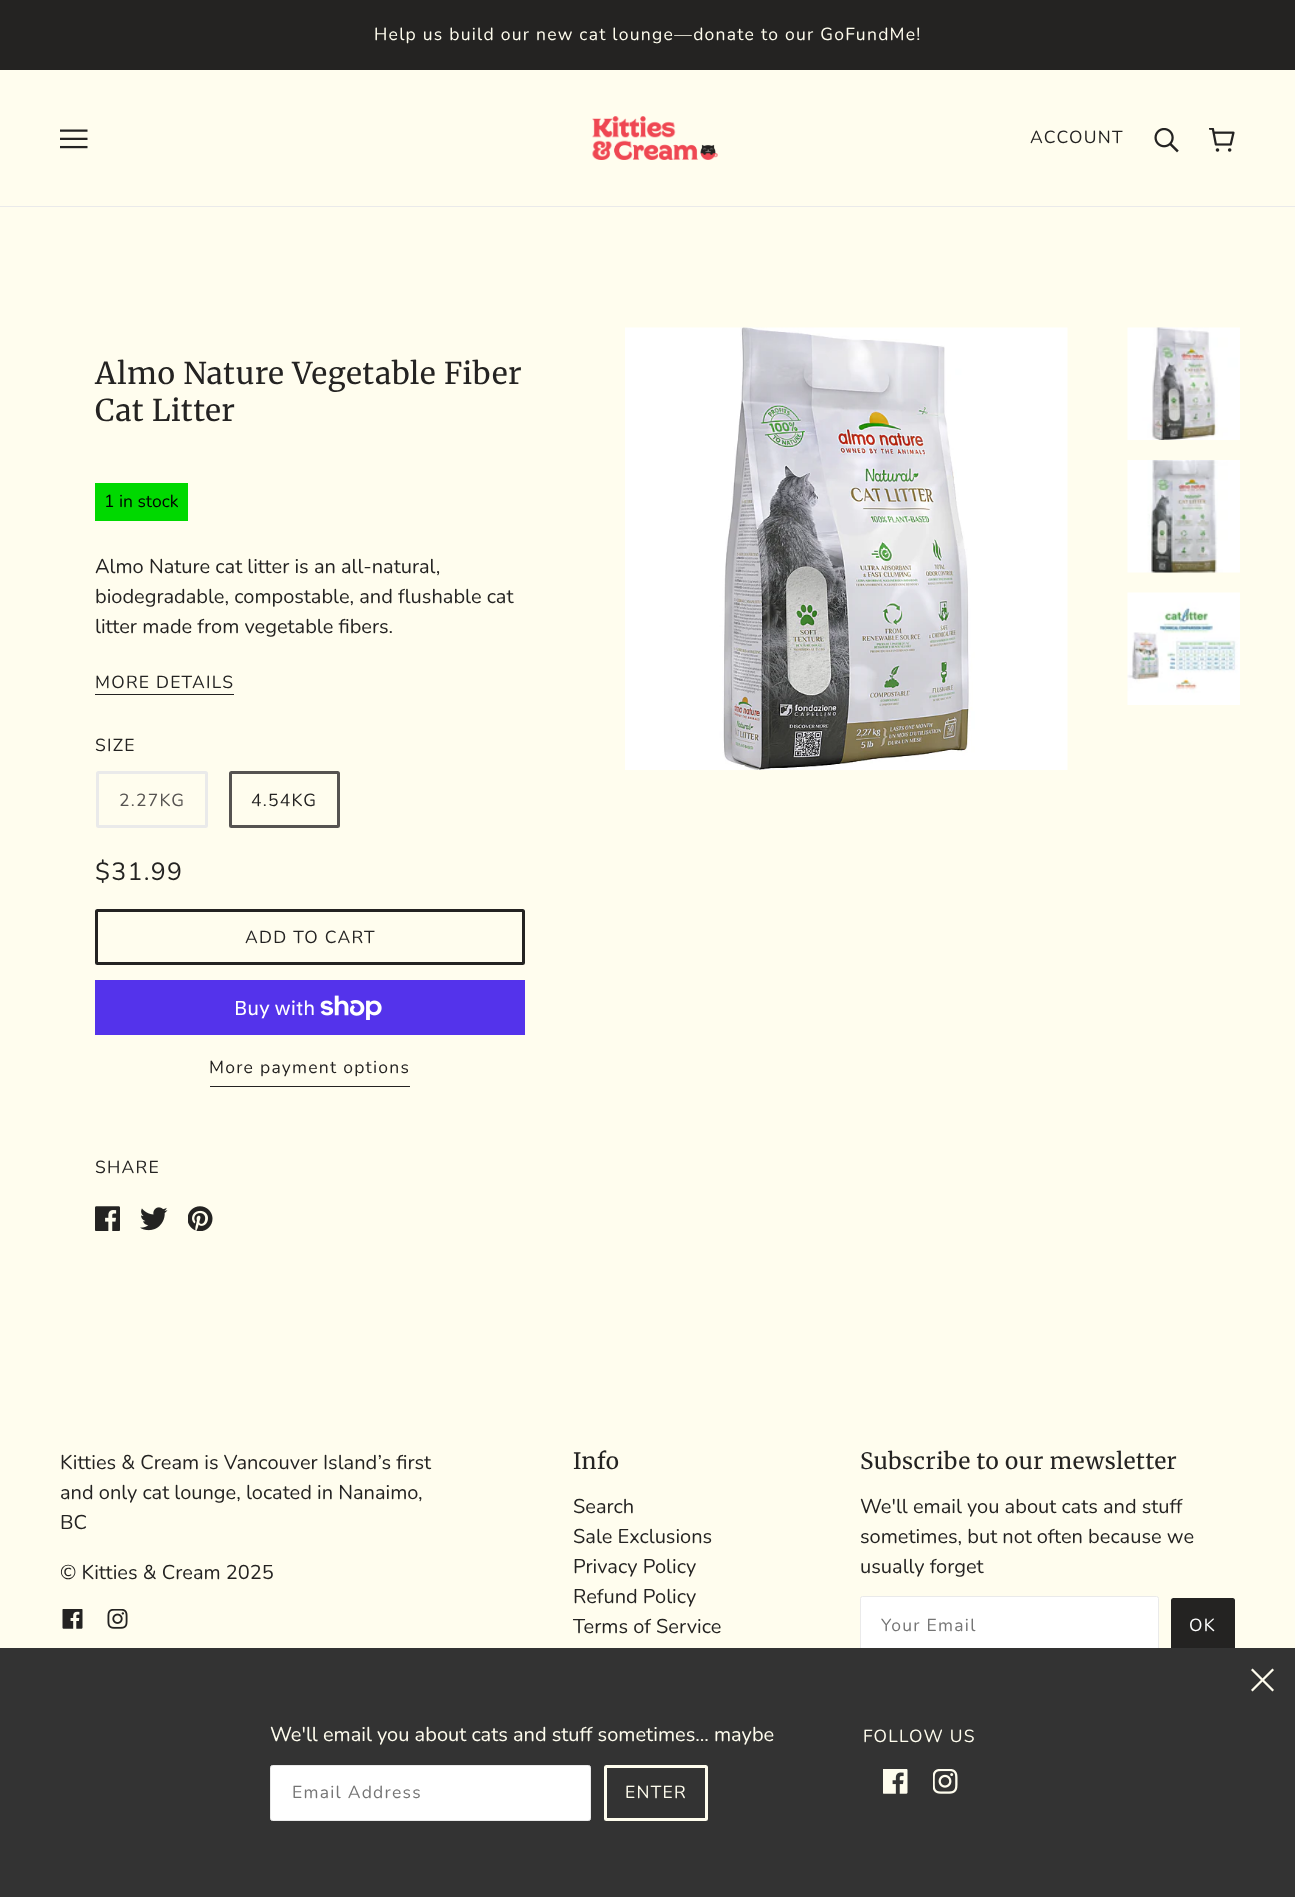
(async () => {
const canvas = document.querySelector("canvas")
canvas.width = 1295
canvas.height = 1897
const c = canvas.getContext("2d")
c.miterLimit = 4
c.fontKerning = "normal"
function T(s,x,y){c.fillText(s,x,y)}
function R(x,y,w,h){c.fillRect(x,y,w,h)}
function Q(x,y,w,h,r){c.beginPath();c.roundRect(x,y,w,h,r);c.fill()}
async function I(src,x,y,w,h){const img=new Image();img.src=src;await img.decode();c.drawImage(img,x,y,w,h)}
c.fillStyle="#fffdee"
R(0,0,1295,1897)
c.fillStyle="#242322"
R(0,0,1295,70)
c.letterSpacing="1.25px"
c.font="17.5px Nunito"
c.fillStyle="#fffdee"
T("Help us build our new cat lounge—donate to our GoFundMe!",374,40)
c.fillStyle="#eaeaea"
R(0,206,1295,1)
await I("1.png",60,129,28,20)
await I("2.png",592,116,126,44)
c.fillStyle="#242322"
T("ACCOUNT",1030,143)
await I("3.png",1154,128,25,25)
await I("4.png",1209,128,26,24)
c.letterSpacing="0.75px"
c.font="30px 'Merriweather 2'"
T("Almo Nature Vegetable Fiber",95,384)
T("Cat Litter",95,421)
c.fillStyle="#00d900"
R(95,483,93,38)
c.letterSpacing="0px"
c.font="17.5px Nunito"
c.fillStyle="#000"
T("1 in stock",104,507)
c.font="20px Nunito"
c.fillStyle="#242322"
T("Almo Nature cat litter is an all-natural,",95,573)
T("biodegradable, compostable, and flushable cat",95,603)
T("litter made from vegetable fibers.",95,633)
c.letterSpacing="1.25px"
c.font="17.5px Nunito"
T("MORE DETAILS",95,688)
R(95,694,139,1)
T("SIZE",95,751)
c.beginPath()
c.roundRect(97.5,772.5,109,54,1)
c.strokeStyle="#eaeaea"
c.lineWidth=3
c.stroke()
c.fillStyle="#565351"
T("2.27KG",119,806)
c.beginPath()
c.roundRect(230.5,772.5,108,54,1)
c.strokeStyle="#565351"
c.stroke()
c.fillStyle="#242322"
T("4.54KG",251,806)
c.font="25px Nunito"
T("$31.99",95,880)
c.beginPath()
c.roundRect(96.5,910.5,427,53,1)
c.strokeStyle="#242322"
c.stroke()
c.font="17.5px Nunito"
T("ADD TO CART",245,943)
c.fillStyle="#5433eb"
R(95,980,430,55)
c.letterSpacing="0px"
c.font="20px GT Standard"
c.fillStyle="#fff"
T("Buy with",234,1015)
await I("5.png",320,995,62,25)
c.fillStyle="#242322"
R(210,1086,200,1)
c.letterSpacing="1.25px"
c.font="17.5px Nunito"
T("More payment options",209,1073)
T("SHARE",95,1173)
await I("6.png",95,1206,25,25)
await I("7.png",140,1207,28,24)
await I("8.png",188,1206,25,25)
await I("9.png",625,327,443,443)
await I("10.png",1127,327,113,113)
await I("11.png",1127,460,113,113)
await I("12.png",1127,592,113,113)
c.letterSpacing="0px"
c.font="20px Nunito"
T("Kitties & Cream is Vancouver Island’s first",60,1469)
T("and only cat lounge, located in Nanaimo,",60,1499)
T("BC",60,1529)
T("© Kitties & Cream 2025",60,1579)
await I("13.png",62,1609,21,20)
await I("14.png",107,1609,21,20)
c.letterSpacing="0.55px"
c.font="22.5px Merriweather"
T("Info",573,1469)
c.letterSpacing="0px"
c.font="20px Nunito"
T("Search",573,1513)
T("Sale Exclusions",573,1543)
T("Privacy Policy",573,1573)
T("Refund Policy",573,1603)
T("Terms of Service",573,1633)
c.letterSpacing="0.55px"
c.font="22.5px Merriweather"
T("Subscribe to our mewsletter",860,1469)
c.letterSpacing="0px"
c.font="20px Nunito"
T("We'll email you about cats and stuff",860,1513)
T("sometimes, but not often because we",860,1543)
T("usually forget",860,1573)
c.fillStyle="#fff"
c.beginPath()
c.roundRect(860.5,1596.5,298,57,2)
c.fill()
c.strokeStyle="#eaeaea"
c.lineWidth=1
c.stroke()
c.letterSpacing="1.25px"
c.font="17.5px Nunito"
c.fillStyle="#757575"
T("Your Email",881,1631)
c.fillStyle="#242322"
Q(1171,1598,64,56,2.5)
c.fillStyle="#fff"
T("OK",1189,1631)
c.fillStyle="#333"
R(0,1648,1295,249)
await I("15.png",1251,1668,23,24)
c.letterSpacing="0px"
c.font="20px Nunito"
c.fillStyle="#fffdee"
T("We'll email you about cats and stuff sometimes... maybe",270,1741)
c.fillStyle="#fff"
c.beginPath()
c.roundRect(270.5,1765.5,320,55,2)
c.fill()
c.stroke()
c.letterSpacing="1.25px"
c.font="17.5px Nunito"
c.fillStyle="#757575"
T("Email Address",292,1798)
c.beginPath()
c.roundRect(605.5,1766.5,101,53,1)
c.strokeStyle="#fffdee"
c.lineWidth=3
c.stroke()
c.fillStyle="#fffdee"
T("ENTER",625,1798)
T("FOLLOW US",863,1742)
await I("16.png",883,1769,25,25)
await I("17.png",933,1769,25,25)
})()
